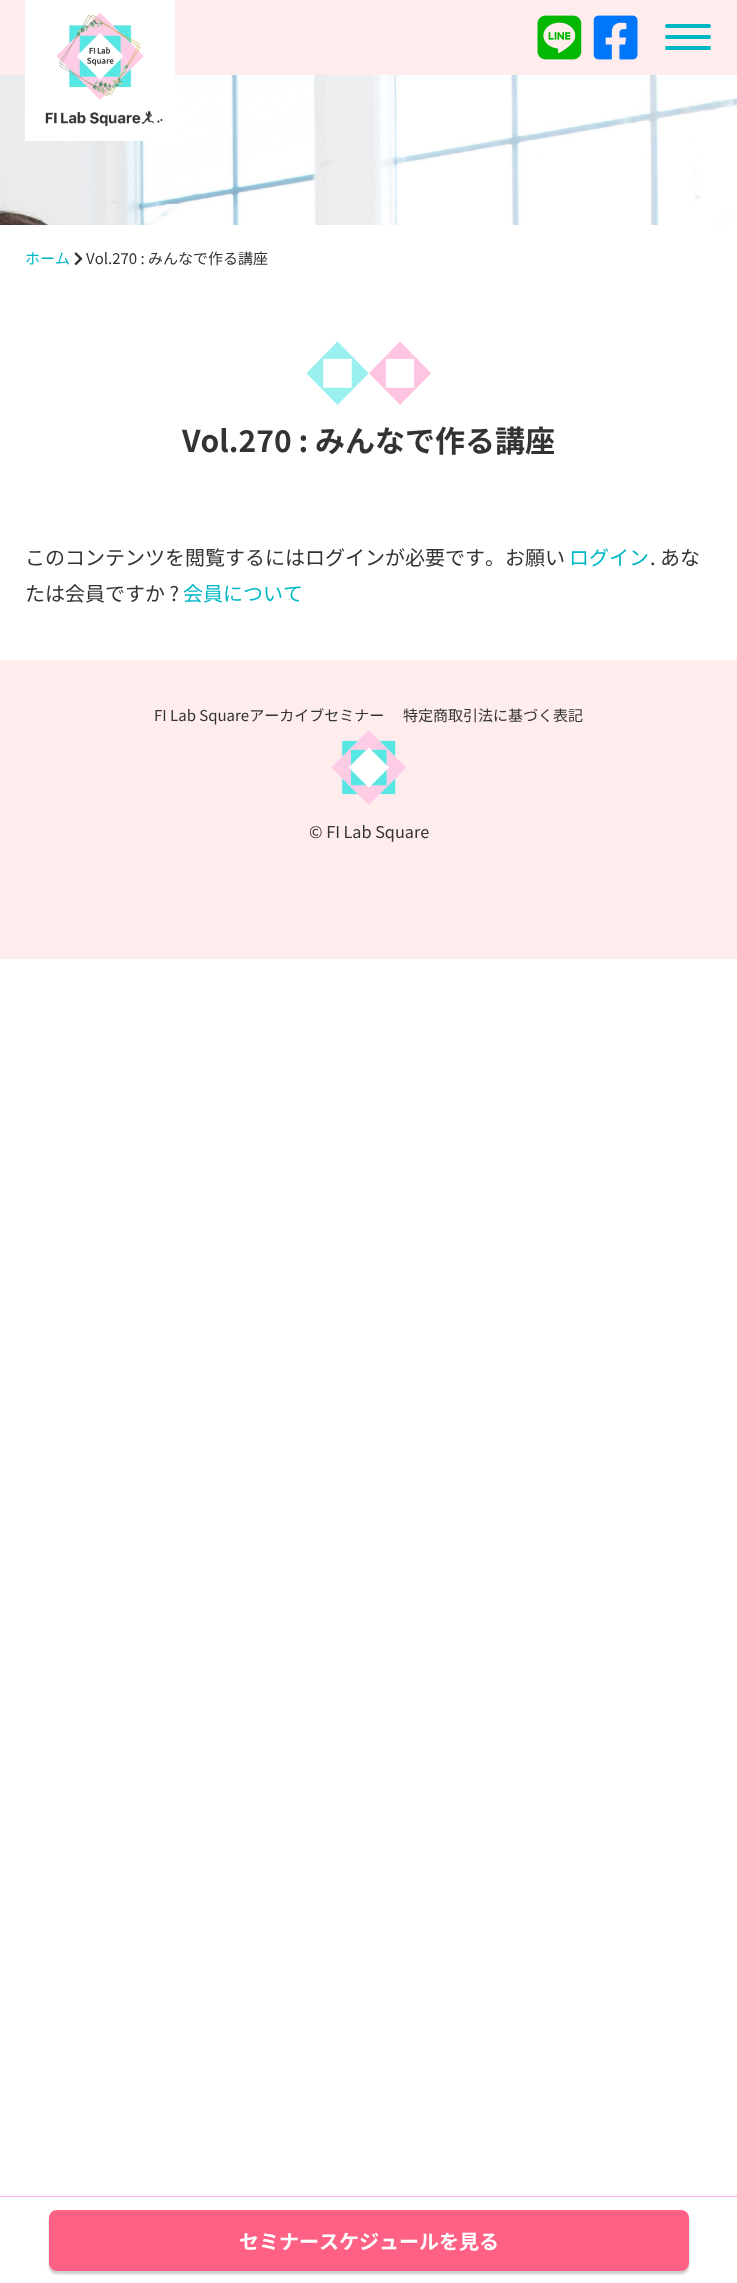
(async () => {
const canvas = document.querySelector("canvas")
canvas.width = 737
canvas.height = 2283
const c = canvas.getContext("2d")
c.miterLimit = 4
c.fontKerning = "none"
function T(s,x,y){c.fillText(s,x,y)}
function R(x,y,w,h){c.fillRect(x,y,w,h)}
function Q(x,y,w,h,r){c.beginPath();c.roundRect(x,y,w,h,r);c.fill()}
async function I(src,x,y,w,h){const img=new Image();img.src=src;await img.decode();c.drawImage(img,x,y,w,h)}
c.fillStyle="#fff"
R(0,0,737,2283)
c.fillStyle="#ffeded"
R(0,0,737,75)
await I("4.png",0,75,737,150)
c.fillStyle="#fff"
R(25,0,150,141)
await I("1.png",45,12,118,115)
await I("2.png",537,15,45,45)
await I("3.png",593,15,45,45)
c.fillStyle="#01b7c5"
Q(665,24,46,4,2)
Q(665,35,46,4,2)
Q(665,46,46,4,2)
c.font="15px Noto Sans JP"
T("ホーム",25,264)
await I("5.png",74,252,9,14)
c.fillStyle="#333"
T("Vol.270 : みんなで作る講座",86,264)
await I("6.png",306,341,126,64)
c.font="bold 30px Noto Sans JP"
T("Vol.270 : みんなで作る講座",182,452)
c.font="20px Noto Sans JP"
T("このコンテンツを閲覧するにはログインが必要です。お願い",25,565)
c.fillStyle="#01b7c5"
T("ログイン",569,565)
c.fillStyle="#333"
T(". あな",650,565)
T("たは会員ですか ?",25,601)
c.fillStyle="#01b7c5"
T("会員について",183,601)
c.fillStyle="#ffeded"
R(0,660,737,299)
c.font="15px Noto Sans JP"
c.fillStyle="#333"
T("FI Lab Squareアーカイブセミナー",154,721)
T("特定商取引法に基づく表記",403,721)
await I("7.png",331,730,76,75)
c.font="16.25px Noto Sans JP"
T("© FI Lab Square",309,838)
c.fillStyle="#ffb0e6"
R(0,2196,737,1)
c.fillStyle="#00000033"
c.filter="blur(1px)"
c.beginPath()
c.roundRect(49,2213,640,61,8)
c.fill()
c.filter="none"
c.fillStyle="#ff6185"
Q(49,2210,640,61,8)
c.font="bold 20px Noto Sans JP"
c.fillStyle="#fff"
T("セミナースケジュールを見る",239,2249)
})()
